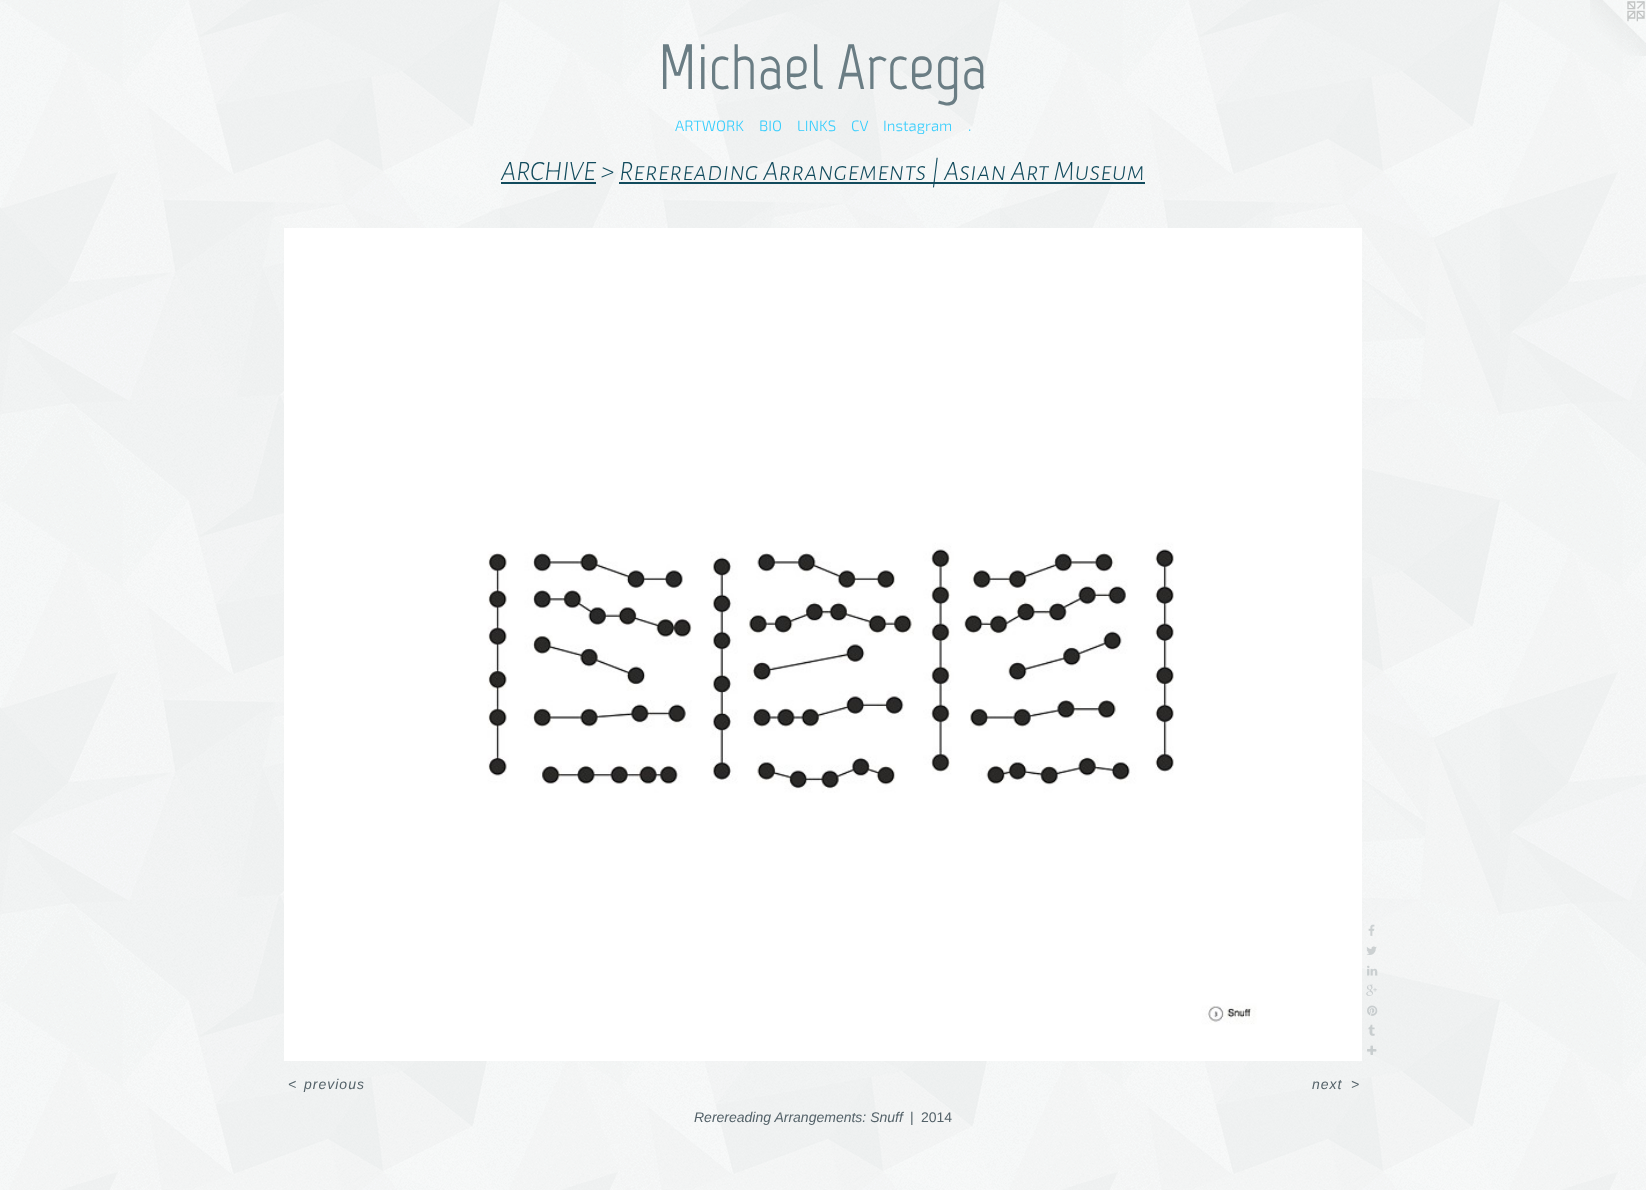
(async () => {
const canvas = document.querySelector("canvas")
canvas.width = 1646
canvas.height = 1190
const c = canvas.getContext("2d")
c.miterLimit = 4
c.fontKerning = "normal"
function T(s,x,y){c.fillText(s,x,y)}
function R(x,y,w,h){c.fillRect(x,y,w,h)}
async function I(src,x,y,w,h){const img=new Image();img.src=src;await img.decode();c.drawImage(img,x,y,w,h)}
c.fillStyle="#fff"
R(0,0,1646,1190)
await I("1.png",0,0,1646,1190)
await I("2.png",1590,0,56,56)
c.font="64px Marvel"
c.fillStyle="#6a7d84"
T("Michael Arcega",658,89)
c.font="300 15px 'Exo 2'"
c.fillStyle="#34cdfd"
T("ARTWORK",675,131)
T("BIO",759,131)
T("LINKS",797,131)
T("CV",851,131)
T("Instagram",883,131)
T(".",968,131)
c.font="italic 300 28px Alegreya Sans SC"
c.fillStyle="#124b5d"
T("ARCHIVE >",501,180)
R(501,182,95,2)
R(619,182,526,2)
T("Rerereading Arrangements | Asian Art Museum",619,180)
await I("3.png",284,228,1078,833)
await I("4.png",1368,924,7,12)
await I("5.png",1366,946,11,9)
await I("6.png",1367,965,11,11)
await I("7.png",1366,984,11,12)
await I("8.png",1367,1005,11,11)
await I("9.png",1368,1024,7,12)
await I("10.png",1367,1045,10,10)
c.letterSpacing="1px"
c.font="italic 14px Liberation Sans"
c.fillStyle="#546269"
T("<",288,1089)
T("previous",304,1089)
T("next",1312,1089)
T(">",1351,1089)
c.letterSpacing="0px"
T("Rerereading Arrangements: Snuff",694,1122)
c.font="14px Liberation Sans"
T("|",910,1122)
T("2014",921,1122)
})()
